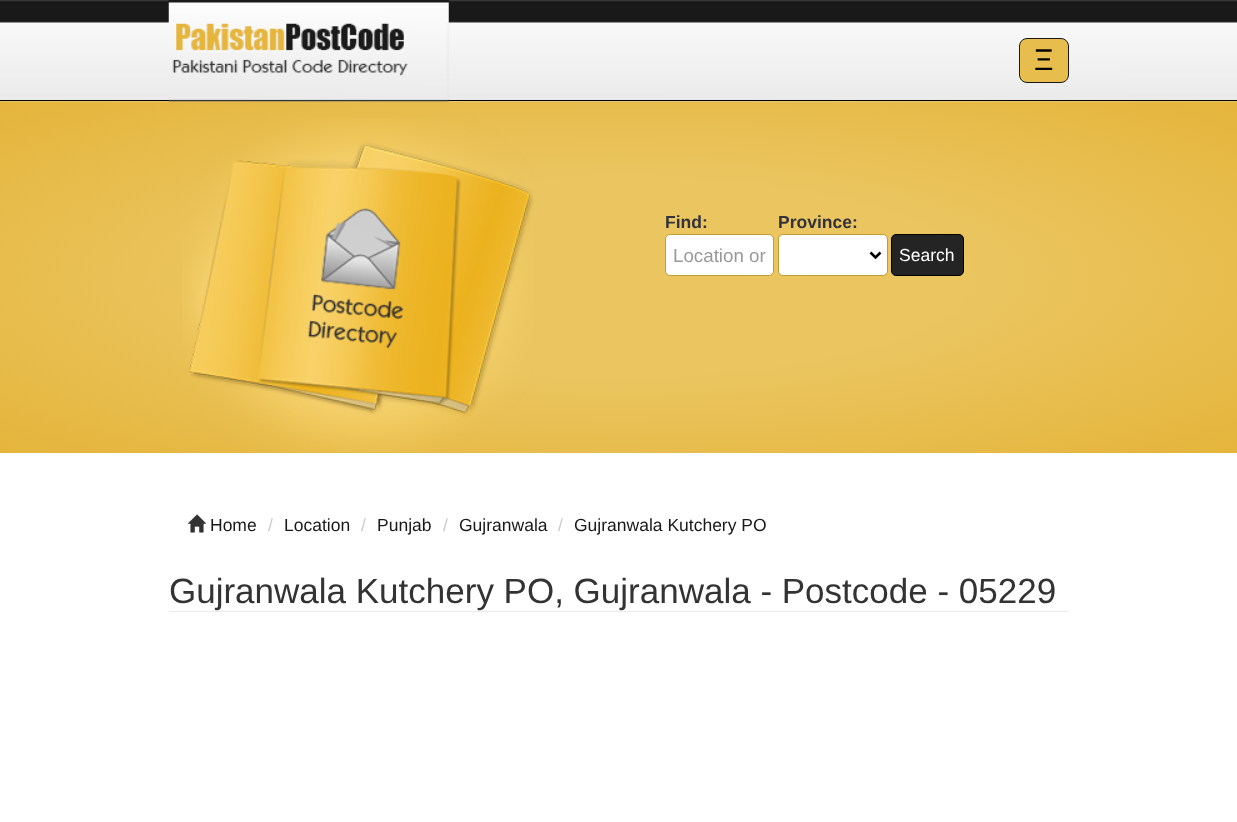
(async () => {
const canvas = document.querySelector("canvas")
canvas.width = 1237
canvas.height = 822
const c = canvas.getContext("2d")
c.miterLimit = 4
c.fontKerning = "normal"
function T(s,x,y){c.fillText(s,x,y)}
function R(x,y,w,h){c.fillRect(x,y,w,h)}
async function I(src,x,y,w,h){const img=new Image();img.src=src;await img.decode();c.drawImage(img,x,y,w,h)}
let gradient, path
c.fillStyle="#fff"
R(0,0,1237,822)
gradient = c.createRadialGradient(619,977.32,0,619,977.32,875)
gradient.addColorStop(.4,"#eac560")
gradient.addColorStop(1,"#e5b53b")
c.fillStyle = gradient
c.beginPath()
c.rect(0,101,1237,352)
c.save()
c.clip()
c.scale(1,248 / 875)
c.fillRect(0,0,1237,2901)
c.restore()
await I("1.png",0,0,1237,102)
c.fillStyle="#000"
R(0,100,1237,1)
await I("2.png",168,0,281,102)
c.fillStyle="#e7bd4d"
c.beginPath()
c.roundRect(1019.5,38.5,49,44,7.5)
c.fill()
c.strokeStyle="#191919"
c.stroke()
c.font="30px Liberation Sans"
c.fillStyle="#000"
T("Ξ",1034,70)
await I("3.png",182,118,352,334)
c.font="bold 17.5px Liberation Sans"
c.fillStyle="#33333b"
T("Find:",665,228)
c.fillStyle="#fff"
c.beginPath()
c.roundRect(665.5,234.5,108,41,4.5)
c.fill()
c.strokeStyle="#c29b34"
c.stroke()
c.font="18.75px Liberation Sans"
c.fillStyle="#999"
T("Location or",673,262)
c.font="bold 17.5px Liberation Sans"
c.fillStyle="#33333b"
T("Province:",778,228)
c.fillStyle="#fff"
c.beginPath()
c.roundRect(778.5,234.5,109,41,4.5)
c.fill()
c.stroke()
path = new Path2D("M870.5 252.5l5 5l5-5")
c.strokeStyle="#000"
c.lineWidth=2.5
c.stroke(path)
c.fillStyle="#242424"
c.beginPath()
c.roundRect(891.5,234.5,72,41,4.5)
c.fill()
c.lineWidth=1
c.stroke()
c.font="17.5px Liberation Sans"
c.fillStyle="#fff"
T("Search",899,261)
await I("4.png",187,514,20,19)
c.fillStyle="#191919"
T("Home",210,531)
c.fillStyle="#ccc"
T("/",268,531)
c.fillStyle="#191919"
T("Location",284,531)
c.fillStyle="#ccc"
T("/",361,531)
c.fillStyle="#191919"
T("Punjab",377,531)
c.fillStyle="#ccc"
T("/",443,531)
c.fillStyle="#191919"
T("Gujranwala",459,531)
c.fillStyle="#ccc"
T("/",558,531)
c.fillStyle="#191919"
T("Gujranwala Kutchery PO",574,531)
c.fillStyle="#ebebeb"
R(169,611,900,1)
c.font="35px Liberation Sans"
c.fillStyle="#333"
T("Gujranwala Kutchery PO, Gujranwala - Postcode - 05229",169,603)
})()
